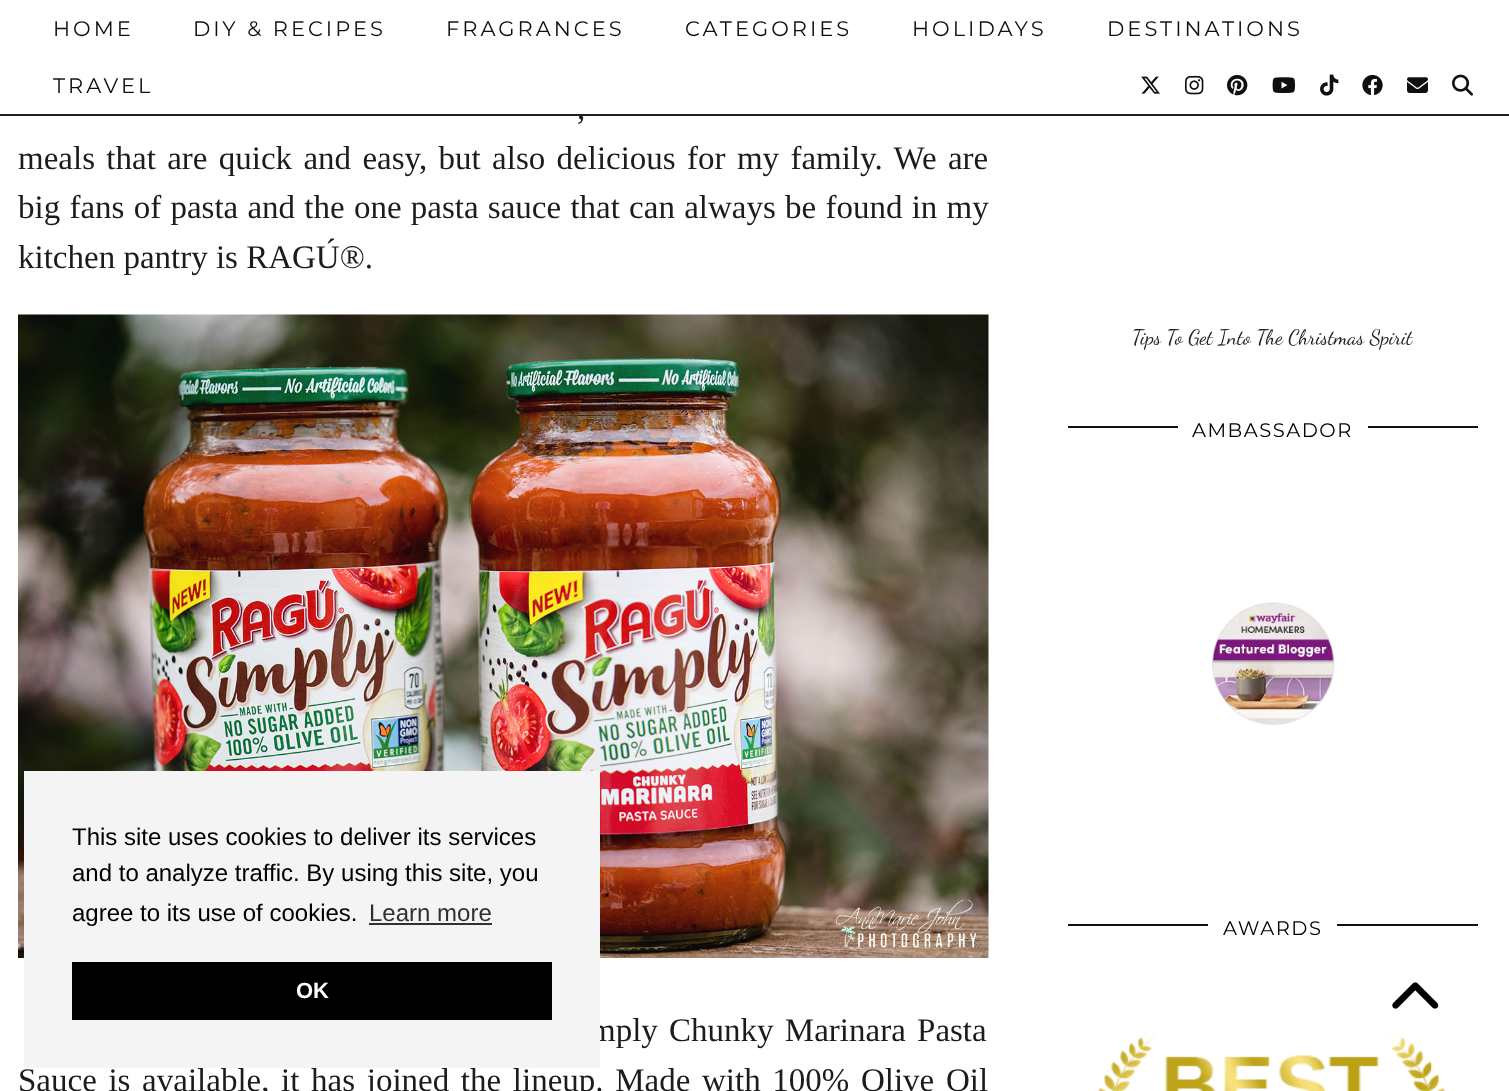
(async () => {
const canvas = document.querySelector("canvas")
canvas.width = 1509
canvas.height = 1091
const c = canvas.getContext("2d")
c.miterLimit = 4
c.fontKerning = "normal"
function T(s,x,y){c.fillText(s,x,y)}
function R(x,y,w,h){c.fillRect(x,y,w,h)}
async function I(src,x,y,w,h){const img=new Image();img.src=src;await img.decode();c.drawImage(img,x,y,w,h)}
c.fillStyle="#fff"
R(0,0,1509,1091)
c.wordSpacing="1px"
c.font="33px Liberation Serif"
c.fillStyle="#1c1c1c"
T(",",577,119)
c.fillStyle="#fffffff0"
R(579,115,3,1)
c.fillStyle="#111111f0"
R(0,114,1509,2)
c.letterSpacing="3px"
c.wordSpacing="0px"
c.font="100 21px Montserrat"
c.fillStyle="#0f0f0f"
T("HOME",53,36)
T("DIY & RECIPES",193,36)
T("FRAGRANCES",446,36)
T("CATEGORIES",685,36)
T("HOLIDAYS",912,36)
T("DESTINATIONS",1107,36)
T("TRAVEL",53,93)
await I("1.png",1141,76,19,18)
await I("2.png",1185,75,19,20)
await I("3.png",1227,74,21,22)
await I("4.png",1272,77,23,16)
await I("5.png",1320,74,19,22)
await I("6.png",1362,74,21,22)
await I("7.png",1407,77,21,16)
await I("8.png",1452,74,21,22)
c.letterSpacing="0px"
c.wordSpacing="3.1px"
c.font="33px Liberation Serif"
c.fillStyle="#1c1c1c"
T("meals that are quick and easy, but also delicious for my family. We are",18,169)
c.wordSpacing="1px"
T("big fans of pasta and the one pasta sauce that can always be found in my",18,218)
c.wordSpacing="0px"
T("kitchen pantry is RAGÚ®.",18,268)
await I("9.png",18,314,971,644)
c.wordSpacing="3px"
T("mply Chunky Marinara Pasta",590,1041)
c.wordSpacing="3.4px"
T("Sauce is available, it has joined the lineup. Made with 100% Olive Oil",18,1091)
c.wordSpacing="0px"
c.font="21px Dancing Script"
c.fillStyle="#222"
T("Tips To Get Into The Christmas Spirit",1132,344)
c.fillStyle="#111"
R(1068,426,410,2)
c.fillStyle="#fff"
R(1178,426,190,2)
c.letterSpacing="1.5px"
c.font="100 19.5px Montserrat"
c.fillStyle="#000"
T("AMBASSADOR",1192,437)
await I("10.png",1212,602,123,123)
c.fillStyle="#111"
R(1068,924,410,2)
c.fillStyle="#fff"
R(1208,924,129,2)
c.fillStyle="#000"
T("AWARDS",1223,935)
await I("11.png",1098,1034,347,57)
c.fillStyle="#f4f4f4"
R(24,771,576,297)
c.letterSpacing="0px"
c.font="24px Liberation Sans"
c.fillStyle="#000"
T("This site uses cookies to deliver its services",72,845)
T("and to analyze traffic. By using this site, you",72,881)
T("agree to its use of cookies.",72,921)
c.fillStyle="#313131"
T("Learn more",369,921)
R(369,923,123,2)
c.fillStyle="#000"
R(72,962,480,58)
c.font="bold 22px Liberation Sans"
c.fillStyle="#fff"
T("OK",296,998)
await I("12.png",1392,982,47,27)
})()
